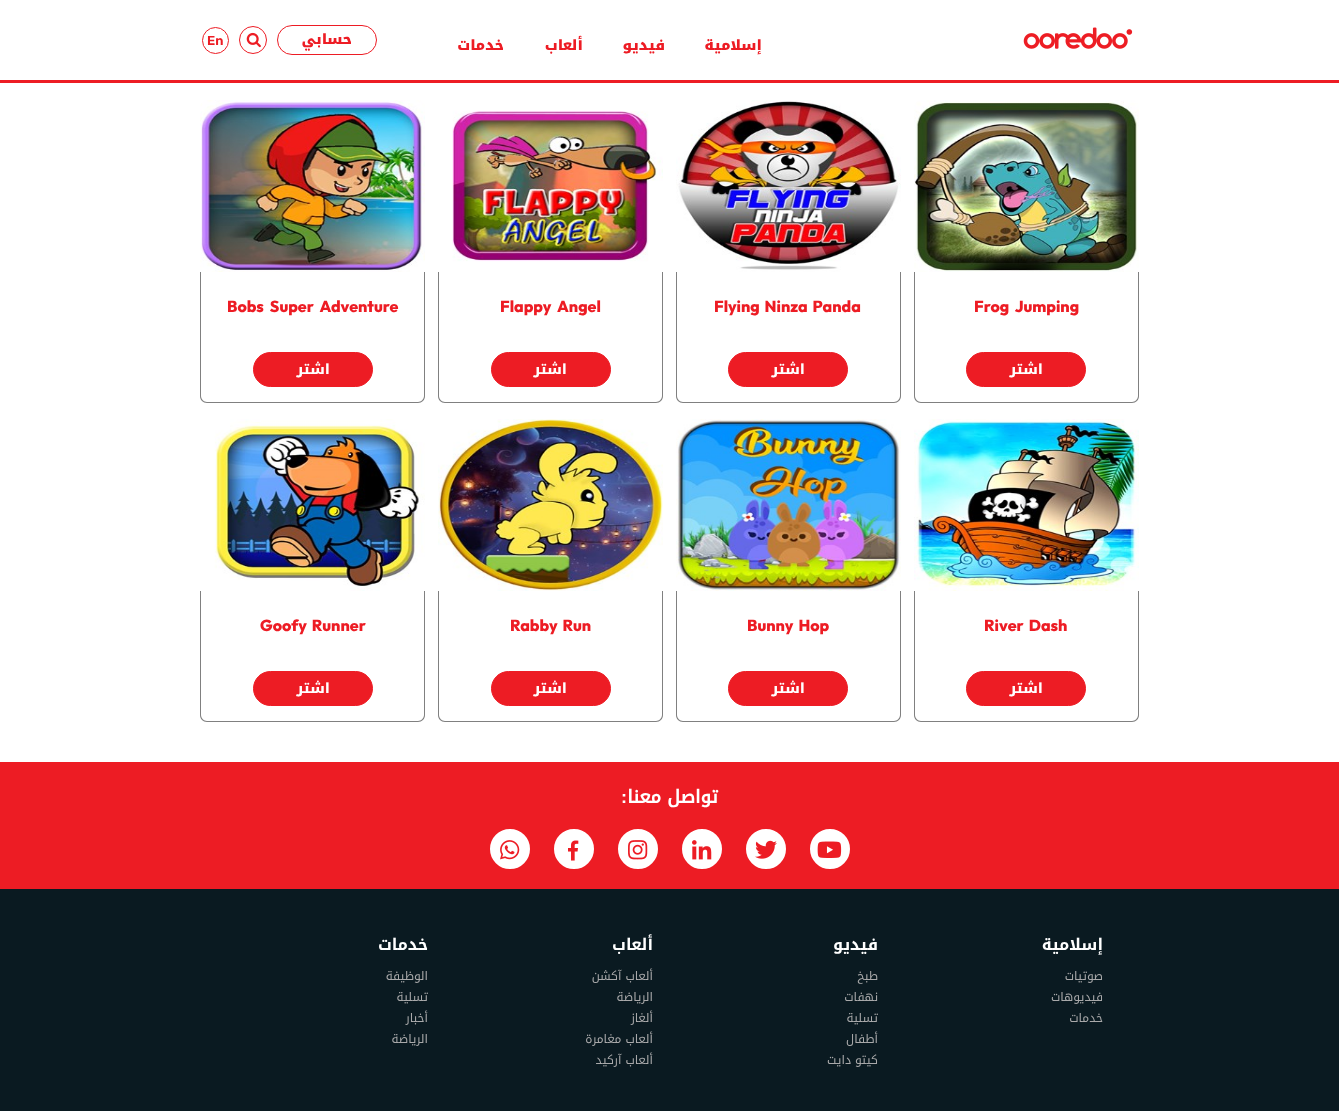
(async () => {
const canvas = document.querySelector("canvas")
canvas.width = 1339
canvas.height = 1111
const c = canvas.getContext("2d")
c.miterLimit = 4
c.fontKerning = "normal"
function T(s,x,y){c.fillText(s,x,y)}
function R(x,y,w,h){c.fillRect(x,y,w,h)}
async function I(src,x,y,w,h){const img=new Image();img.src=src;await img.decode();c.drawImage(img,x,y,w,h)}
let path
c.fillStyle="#fff"
R(0,0,1339,1111)
c.fillStyle="#ed1c24"
R(0,80,1339,3)
await I("1.png",1023,27,110,22)
c.direction="rtl"
c.font="900 14px Noto Kufi Arabic"
T("إسلامية",762,50)
T("فيديو",665,50)
T("ألعاب",583,50)
T("خدمات",504,50)
c.beginPath()
c.roundRect(277.5,25.5,99,29,14.5)
c.strokeStyle="#ed1c24"
c.stroke()
T("حسابي",352,44)
c.beginPath()
c.arc(253,40,13.5,0,7)
c.stroke()
await I("2.png",246,32,15,16)
c.beginPath()
c.arc(215.5,40.5,13,0,7)
c.stroke()
c.direction="ltr"
c.font="600 13px Rubik"
T("En",207,45)
await I("3.png",914,100,225,172)
c.fillStyle="#808080"
path = new Path2D("M914 272h225v124c0 4-3 7-7 7h-211c-4 0-7-3-7-7zm1 0h223v124c0 3-3 6-6 6h-211c-3 0-6-3-6-6z")
c.fill(path,"evenodd")
c.wordSpacing="3px"
c.font="800 16px Outfit"
c.fillStyle="#ed1c24"
T("Frog Jumping",974,312)
c.beginPath()
c.roundRect(966.5,352.5,119,34,17)
c.fill()
c.stroke()
c.wordSpacing="0px"
c.direction="rtl"
c.font="800 14px Noto Kufi Arabic"
c.fillStyle="#fff"
T("اشتر",1043,374)
await I("4.png",676,100,225,172)
c.fillStyle="#808080"
path = new Path2D("M676 272h225v124c0 4-3 7-7 7h-211c-4 0-7-3-7-7zm1 0h223v124c0 3-3 6-6 6h-211c-3 0-6-3-6-6z")
c.fill(path,"evenodd")
c.wordSpacing="2px"
c.direction="ltr"
c.font="800 16px Outfit"
c.fillStyle="#ed1c24"
T("Flying Ninza Panda",714,312)
c.beginPath()
c.roundRect(728.5,352.5,119,34,17)
c.fill()
c.stroke()
c.wordSpacing="0px"
c.direction="rtl"
c.font="800 14px Noto Kufi Arabic"
c.fillStyle="#fff"
T("اشتر",805,374)
await I("5.png",438,100,225,172)
c.fillStyle="#808080"
path = new Path2D("M438 272h225v124c0 4-3 7-7 7h-211c-4 0-7-3-7-7zm1 0h223v124c0 3-3 6-6 6h-211c-3 0-6-3-6-6z")
c.fill(path,"evenodd")
c.wordSpacing="3px"
c.direction="ltr"
c.font="800 16px Outfit"
c.fillStyle="#ed1c24"
T("Flappy Angel",500,312)
c.beginPath()
c.roundRect(491.5,352.5,119,34,17)
c.fill()
c.stroke()
c.wordSpacing="0px"
c.direction="rtl"
c.font="800 14px Noto Kufi Arabic"
c.fillStyle="#fff"
T("اشتر",567,374)
await I("6.png",200,100,225,172)
c.fillStyle="#808080"
path = new Path2D("M200 272h225v124c0 4-3 7-7 7h-211c-4 0-7-3-7-7zm1 0h223v124c0 3-3 6-6 6h-211c-3 0-6-3-6-6z")
c.fill(path,"evenodd")
c.wordSpacing="3px"
c.direction="ltr"
c.font="800 16px Outfit"
c.fillStyle="#ed1c24"
T("Bobs Super Adventure",227,312)
c.beginPath()
c.roundRect(253.5,352.5,119,34,17)
c.fill()
c.stroke()
c.wordSpacing="0px"
c.direction="rtl"
c.font="800 14px Noto Kufi Arabic"
c.fillStyle="#fff"
T("اشتر",330,374)
await I("7.png",914,419,225,172)
c.fillStyle="#808080"
path = new Path2D("M914 591h225v124c0 4-3 7-7 7h-211c-4 0-7-3-7-7zm1 0h223v124c0 3-3 6-6 6h-211c-3 0-6-3-6-6z")
c.fill(path,"evenodd")
c.wordSpacing="2px"
c.direction="ltr"
c.font="800 16px Outfit"
c.fillStyle="#ed1c24"
T("River Dash",984,631)
c.beginPath()
c.roundRect(966.5,671.5,119,34,17)
c.fill()
c.stroke()
c.wordSpacing="0px"
c.direction="rtl"
c.font="800 14px Noto Kufi Arabic"
c.fillStyle="#fff"
T("اشتر",1043,693)
await I("8.png",676,419,225,172)
c.fillStyle="#808080"
path = new Path2D("M676 591h225v124c0 4-3 7-7 7h-211c-4 0-7-3-7-7zm1 0h223v124c0 3-3 6-6 6h-211c-3 0-6-3-6-6z")
c.fill(path,"evenodd")
c.wordSpacing="2px"
c.direction="ltr"
c.font="800 16px Outfit"
c.fillStyle="#ed1c24"
T("Bunny Hop",747,631)
c.beginPath()
c.roundRect(728.5,671.5,119,34,17)
c.fill()
c.stroke()
c.wordSpacing="0px"
c.direction="rtl"
c.font="800 14px Noto Kufi Arabic"
c.fillStyle="#fff"
T("اشتر",805,693)
await I("9.png",438,419,225,172)
c.fillStyle="#808080"
path = new Path2D("M438 591h225v124c0 4-3 7-7 7h-211c-4 0-7-3-7-7zm1 0h223v124c0 3-3 6-6 6h-211c-3 0-6-3-6-6z")
c.fill(path,"evenodd")
c.wordSpacing="2px"
c.direction="ltr"
c.font="800 16px Outfit"
c.fillStyle="#ed1c24"
T("Rabby Run",510,631)
c.beginPath()
c.roundRect(491.5,671.5,119,34,17)
c.fill()
c.stroke()
c.wordSpacing="0px"
c.direction="rtl"
c.font="800 14px Noto Kufi Arabic"
c.fillStyle="#fff"
T("اشتر",567,693)
await I("10.png",200,419,225,172)
c.fillStyle="#808080"
path = new Path2D("M200 591h225v124c0 4-3 7-7 7h-211c-4 0-7-3-7-7zm1 0h223v124c0 3-3 6-6 6h-211c-3 0-6-3-6-6z")
c.fill(path,"evenodd")
c.wordSpacing="2px"
c.direction="ltr"
c.font="800 16px Outfit"
c.fillStyle="#ed1c24"
T("Goofy Runner",260,631)
c.beginPath()
c.roundRect(253.5,671.5,119,34,17)
c.fill()
c.stroke()
c.wordSpacing="0px"
c.direction="rtl"
c.font="800 14px Noto Kufi Arabic"
c.fillStyle="#fff"
T("اشتر",330,693)
c.fillStyle="#ed1c24"
R(0,762,1339,127)
c.font="bold 18px Noto Kufi Arabic"
c.fillStyle="#fff"
T("تواصل معنا",718,803)
c.font="bold 18px Liberation Sans"
T(":",627,803)
c.beginPath()
c.arc(830,849,19,0,7)
c.fill()
c.strokeStyle="#fff"
c.lineWidth=2
c.stroke()
await I("11.png",817,841,25,17)
c.beginPath()
c.arc(766,849,19,0,7)
c.fill()
c.stroke()
await I("12.png",755,840,22,19)
c.beginPath()
c.arc(702,849,19,0,7)
c.fill()
c.stroke()
await I("13.png",692,840,20,20)
c.beginPath()
c.arc(638,849,19,0,7)
c.fill()
c.stroke()
await I("14.png",628,840,20,20)
c.beginPath()
c.arc(574,849,19,0,7)
c.fill()
c.stroke()
await I("15.png",568,840,11,21)
c.beginPath()
c.arc(510,849,19,0,7)
c.fill()
c.stroke()
await I("16.png",500,840,20,20)
c.fillStyle="#0a1a21"
R(0,889,1339,222)
c.font="bold 16px 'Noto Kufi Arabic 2'"
c.fillStyle="#fff"
T("إسلامية",1103,950)
c.font="12px Noto Kufi Arabic"
c.fillStyle="#a9a9aa"
T("صوتيات",1103,980)
T("فيديوهات",1103,1001)
T("خدمات",1103,1022)
c.font="bold 16px 'Noto Kufi Arabic 2'"
c.fillStyle="#fff"
T("فيديو",878,950)
c.font="12px Noto Kufi Arabic"
c.fillStyle="#a9a9aa"
T("طبخ",878,980)
T("نهفات",878,1001)
T("تسلية",878,1022)
T("أطفال",878,1043)
T("كيتو دايت",878,1064)
c.font="bold 16px 'Noto Kufi Arabic 2'"
c.fillStyle="#fff"
T("ألعاب",653,950)
c.font="12px Noto Kufi Arabic"
c.fillStyle="#a9a9aa"
T("ألعاب آكشن",653,980)
T("الرياضة",653,1001)
T("ألغاز",653,1022)
T("ألعاب مغامرة",653,1043)
T("ألعاب آركيد",653,1064)
c.font="bold 16px 'Noto Kufi Arabic 2'"
c.fillStyle="#fff"
T("خدمات",428,950)
c.font="12px Noto Kufi Arabic"
c.fillStyle="#a9a9aa"
T("الوظيفة",428,980)
T("تسلية",428,1001)
T("أخبار",428,1022)
T("الرياضة",428,1043)
})()
